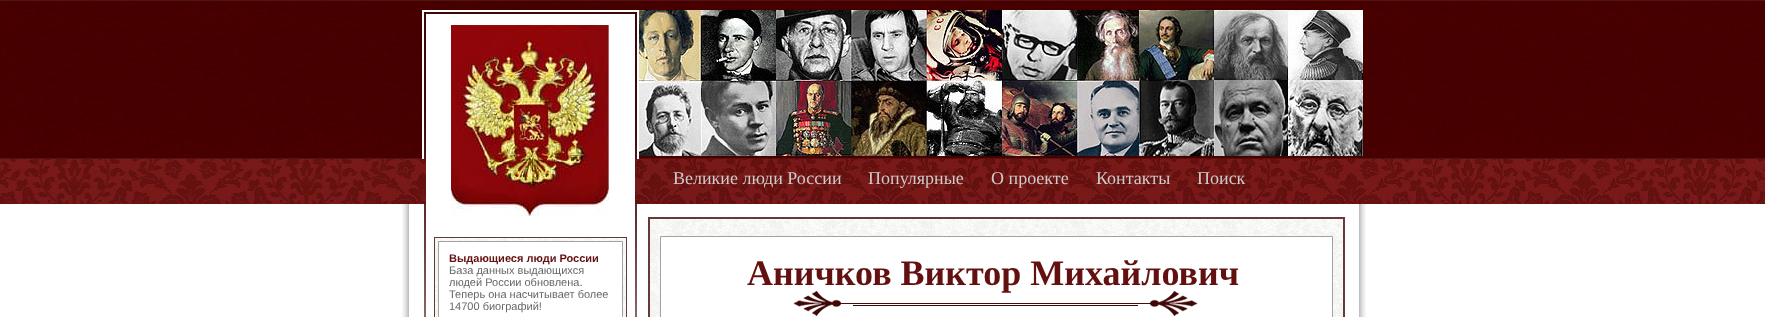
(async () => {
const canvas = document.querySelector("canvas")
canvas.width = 1765
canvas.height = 317
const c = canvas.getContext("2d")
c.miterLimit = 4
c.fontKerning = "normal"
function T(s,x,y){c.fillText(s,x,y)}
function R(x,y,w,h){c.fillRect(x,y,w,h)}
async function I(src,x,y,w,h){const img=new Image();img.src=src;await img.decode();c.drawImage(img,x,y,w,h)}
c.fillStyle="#fff"
R(0,0,1765,317)
await I("1.png",0,0,393,204)
await I("2.png",1373,0,392,204)
await I("3.png",402,204,964,113)
await I("4.png",393,0,980,204)
await I("5.png",422,10,217,207)
await I("6.png",451,25,158,191)
await I("7.png",639,10,62,71)
await I("8.png",701,10,75,71)
await I("9.png",776,10,75,71)
await I("10.png",851,10,75,71)
await I("11.png",926,10,76,71)
await I("12.png",1002,10,75,71)
await I("13.png",1077,10,62,71)
await I("14.png",1139,10,75,71)
await I("15.png",1214,10,74,71)
await I("16.png",1288,10,75,71)
await I("17.png",639,81,62,75)
await I("18.png",701,81,75,75)
await I("19.png",776,81,75,75)
await I("20.png",851,81,75,75)
await I("21.png",926,81,76,75)
await I("22.png",1002,81,75,75)
await I("23.png",1077,81,62,75)
await I("24.png",1139,81,75,75)
await I("25.png",1214,81,74,75)
await I("26.png",1288,81,75,75)
c.font="18px Liberation Serif"
c.fillStyle="#ccc"
T("Великие люди России",673,184)
T("Популярные",868,184)
T("О проекте",991,184)
T("Контакты",1096,184)
T("Поиск",1197,184)
await I("27.png",424,217,213,100)
await I("28.png",435,238,191,79)
c.strokeStyle="#663939"
c.strokeRect(434.5,237.5,192,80)
c.fillStyle="#fff"
c.beginPath()
c.rect(438.5,241.5,184,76)
c.fill()
c.strokeStyle="#a2a2a2"
c.stroke()
c.font="bold 11px Liberation Sans"
c.fillStyle="#631110"
T("Выдающиеся люди России",449,262)
c.font="11px Liberation Sans"
c.fillStyle="#666"
T("База данных выдающихся",449,274)
T("людей России обновлена.",449,286)
T("Теперь она насчитывает более",449,298)
T("14700 биографий!",449,310)
await I("29.png",650,219,693,98)
c.strokeStyle="#663939"
c.lineWidth=2
c.strokeRect(649,218,695,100)
c.fillStyle="#fff"
c.beginPath()
c.rect(660.5,236.5,672,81)
c.fill()
c.strokeStyle="#a2a2a2"
c.lineWidth=1
c.stroke()
await I("30.png",793,291,405,25)
c.font="bold 36px Liberation Serif"
c.fillStyle="#631110"
T("Аничков Виктор Михайлович",747,285)
})()
